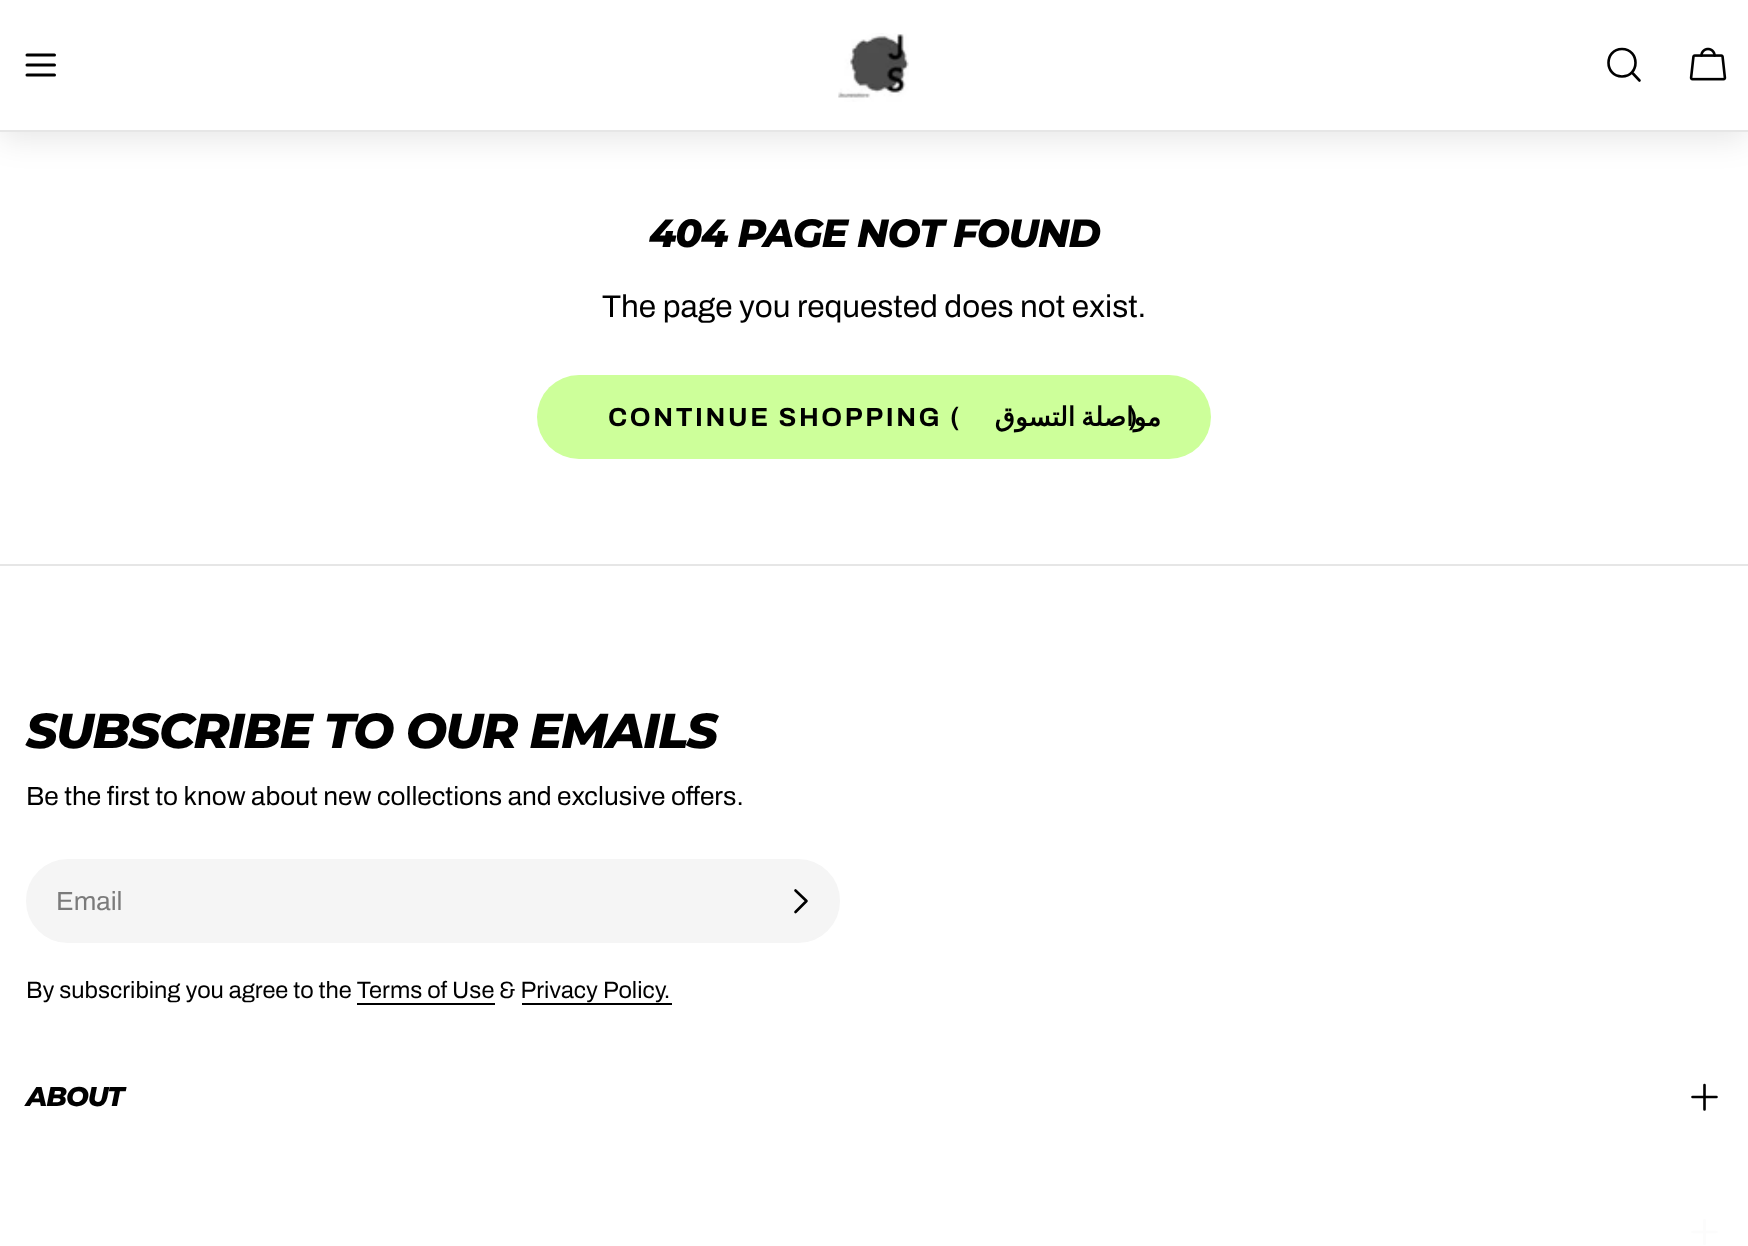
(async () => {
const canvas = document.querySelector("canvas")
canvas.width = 1748
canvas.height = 1246
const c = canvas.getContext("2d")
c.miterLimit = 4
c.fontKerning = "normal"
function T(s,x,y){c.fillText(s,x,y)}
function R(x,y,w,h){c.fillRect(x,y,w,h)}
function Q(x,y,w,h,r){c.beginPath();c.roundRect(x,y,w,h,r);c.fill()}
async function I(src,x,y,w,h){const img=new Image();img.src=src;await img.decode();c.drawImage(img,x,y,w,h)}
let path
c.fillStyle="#fff"
R(0,0,1748,1246)
c.fillStyle="#0000001a"
c.filter="blur(16px)"
c.beginPath()
c.rect(0,7,1748,131)
c.fill()
c.filter="none"
c.fillStyle="#e6e6e6"
R(0,130,1748,2)
c.fillStyle="#fff"
R(0,0,1748,130)
path = new Path2D("M27 65h27.5m-27.5-10h27.5m-27.5 20h27.5")
c.strokeStyle="#000"
c.lineWidth=3
c.lineCap="round"
c.lineJoin="round"
c.stroke(path)
await I("1.png",838,33,71,69)
path = new Path2D("M1622 76.5c18 0 18-27.5 0-27.5c-18 0-18 27.5 0 27.5zm10-4l7.5 8")
c.lineWidth=2.6
c.stroke(path)
await I("2.png",1689,47,38,34)
c.letterSpacing="-1.2px"
c.font="italic 800 39.25px Montserrat"
c.fillStyle="#000"
T("404 PAGE NOT FOUND",649,247)
c.letterSpacing="0px"
c.font="31.5px Archivo"
T("The page you requested does not exist.",602,317)
c.fillStyle="#cdff9a"
Q(537,375,674,84,42)
c.letterSpacing="2.6px"
c.font="bold 26.25px Archivo"
c.fillStyle="#000"
T("CONTINUE SHOPPING (",608,426)
c.wordSpacing="-5px"
c.direction="rtl"
c.font="bold 26.25px DejaVu Sans"
T("مواصلة التسوق",1161,426)
c.wordSpacing="0px"
c.direction="ltr"
c.font="bold 26.25px Archivo"
T(")",1128,426)
c.fillStyle="#e6e6e6"
R(0,564,1748,2)
c.letterSpacing="-1.5px"
c.font="italic 800 49px Montserrat"
c.fillStyle="#000"
T("SUBSCRIBE TO OUR EMAILS",26,748)
c.letterSpacing="0px"
c.font="26.25px Archivo"
T("Be the first to know about new collections and exclusive offers.",26,805)
c.fillStyle="#f5f5f5"
c.beginPath()
c.roundRect(27,860,812,82,41)
c.fill()
c.strokeStyle="#f5f5f5"
c.lineWidth=2
c.lineJoin="miter"
c.stroke()
c.fillStyle="#7b7b7b"
T("Email",56,910)
path = new Path2D("M795.5 890.5l11 10.5l-11 11")
c.strokeStyle="#000"
c.lineWidth=2.6
c.lineJoin="round"
c.stroke(path)
c.font="23.6px Archivo"
c.fillStyle="#000"
T("By subscribing you agree to the Terms of Use & Privacy Policy.",26,998)
R(357,1003,138,2)
R(522,1003,150,2)
c.letterSpacing="-1px"
c.font="italic 800 27px Montserrat"
T("ABOUT",26,1106)
path = new Path2D("M1692.5 1097h24m-12-12v24.5")
c.stroke(path)
path = new Path2D("M1692.5 1232h24m-12-12v24")
c.strokeStyle="#fcfcfc"
c.stroke(path)
})()
